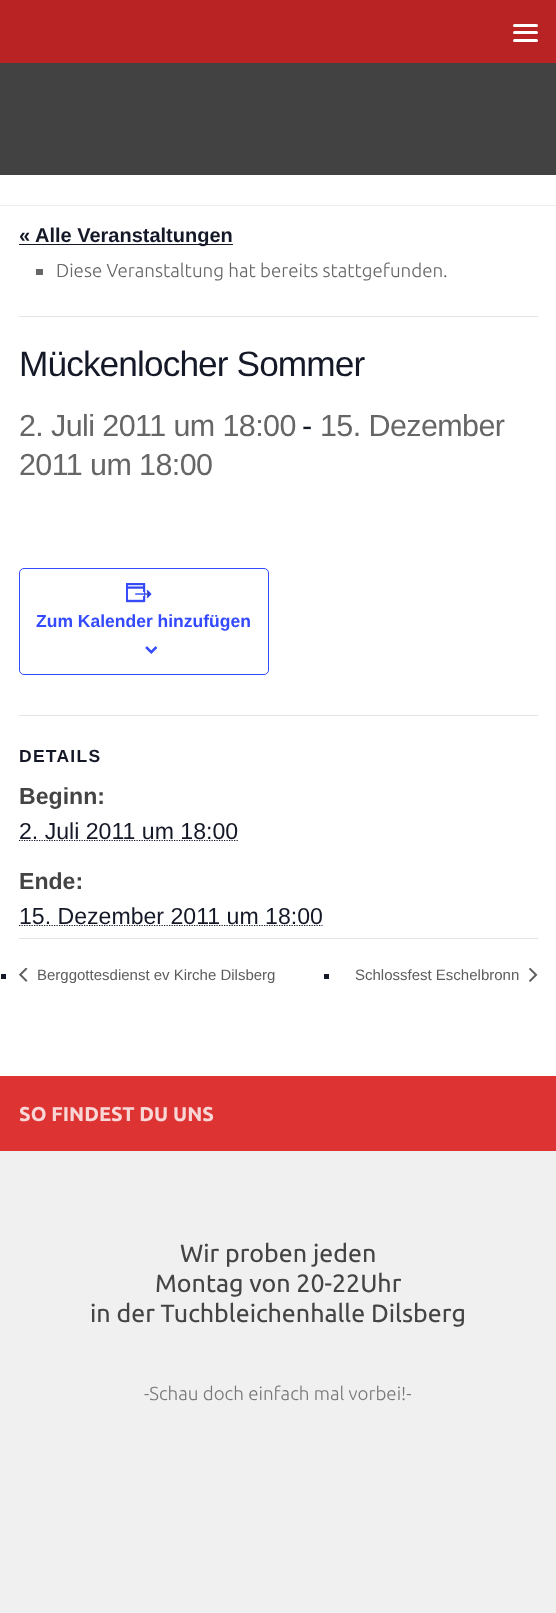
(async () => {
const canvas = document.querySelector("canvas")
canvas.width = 556
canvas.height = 1613
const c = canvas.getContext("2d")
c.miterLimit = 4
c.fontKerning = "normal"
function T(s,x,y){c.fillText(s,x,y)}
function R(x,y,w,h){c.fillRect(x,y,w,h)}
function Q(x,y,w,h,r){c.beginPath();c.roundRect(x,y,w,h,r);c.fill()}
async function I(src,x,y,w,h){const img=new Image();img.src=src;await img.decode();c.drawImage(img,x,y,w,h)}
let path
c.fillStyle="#424242"
R(0,0,556,1613)
c.fillStyle="#ba2323"
R(0,0,556,63)
c.fillStyle="#fff"
Q(513,24,25,3,1.5)
Q(513,31,25,3,1.5)
Q(513,39,25,3,1.5)
R(0,175,556,901)
c.fillStyle="#eee"
R(0,205,556,1)
c.fillStyle="#141827"
R(19,244,214,1)
c.font="bold 20px Liberation Sans"
T("« Alle Veranstaltungen",19,242)
c.fillStyle="#e4e4e4"
R(19,316,519,1)
c.fillStyle="#666"
R(36,269,7,6)
c.font="300 18.75px Ubuntu"
T("Diese Veranstaltung hat bereits stattgefunden.",56,277)
c.letterSpacing="-0.9px"
c.font="35.25px Liberation Sans"
c.fillStyle="#141827"
T("Mückenlocher Sommer",19,376)
c.letterSpacing="-0.6px"
c.font="30.5px Liberation Sans"
c.fillStyle="#666"
T("2. Juli 2011 um 18:00",19,436)
c.fillStyle="#141827"
T("-",302,436)
c.fillStyle="#666"
T("15. Dezember",320,436)
T("2011 um 18:00",19,475)
c.beginPath()
c.roundRect(19.5,568.5,249,106,4.5)
c.strokeStyle="#334aff"
c.stroke()
await I("1.png",126,583,26,20)
c.letterSpacing="0px"
c.font="bold 17.5px Liberation Sans"
c.fillStyle="#334aff"
T("Zum Kalender hinzufügen",36,627)
await I("2.png",145,646,13,8)
c.fillStyle="#e4e4e4"
R(19,715,519,1)
c.letterSpacing="1.25px"
c.fillStyle="#141827"
T("DETAILS",19,762)
c.letterSpacing="0px"
c.font="bold 23.1px Liberation Sans"
c.fillStyle="#444"
T("Beginn:",19,804)
path = new Path2D("M19 840.5h219")
c.strokeStyle="#141827"
c.lineWidth=1.2
c.setLineDash([1.25,1.25])
c.stroke(path)
c.font="23.1px Liberation Sans"
c.fillStyle="#141827"
T("2. Juli 2011 um 18:00",19,839)
c.font="bold 23.1px Liberation Sans"
c.fillStyle="#444"
T("Ende:",19,889)
path = new Path2D("M19 925.5h303.5")
c.stroke(path)
c.font="23.1px Liberation Sans"
c.fillStyle="#141827"
T("15. Dezember 2011 um 18:00",19,924)
c.fillStyle="#e4e4e4"
R(19,938,519,1)
c.fillStyle="#141827"
R(1,974,5,5)
await I("3.png",19,968,9,14)
c.font="15px Liberation Sans"
c.fillStyle="#5d5d5d"
T("Berggottesdienst ev Kirche Dilsberg",37,980)
c.fillStyle="#141827"
R(324,974,5,5)
c.fillStyle="#5d5d5d"
T("Schlossfest Eschelbronn",355,980)
await I("4.png",529,968,9,14)
c.fillStyle="#f0f0f0"
R(0,1151,556,462)
c.fillStyle="#d33"
R(0,1076,556,75)
c.font="bold 20px Ubuntu"
c.fillStyle="#f8d6d6"
T("SO FINDEST DU UNS",19,1121)
c.font="25px Ubuntu"
c.fillStyle="#444"
T("Wir proben jeden",180,1262)
T("Montag von 20-22Uhr",155,1292)
T("in der Tuchbleichenhalle Dilsberg",90,1322)
c.font="300 18.75px Ubuntu"
c.fillStyle="#777"
T("-Schau doch einfach mal vorbei!-",144,1400)
})()
